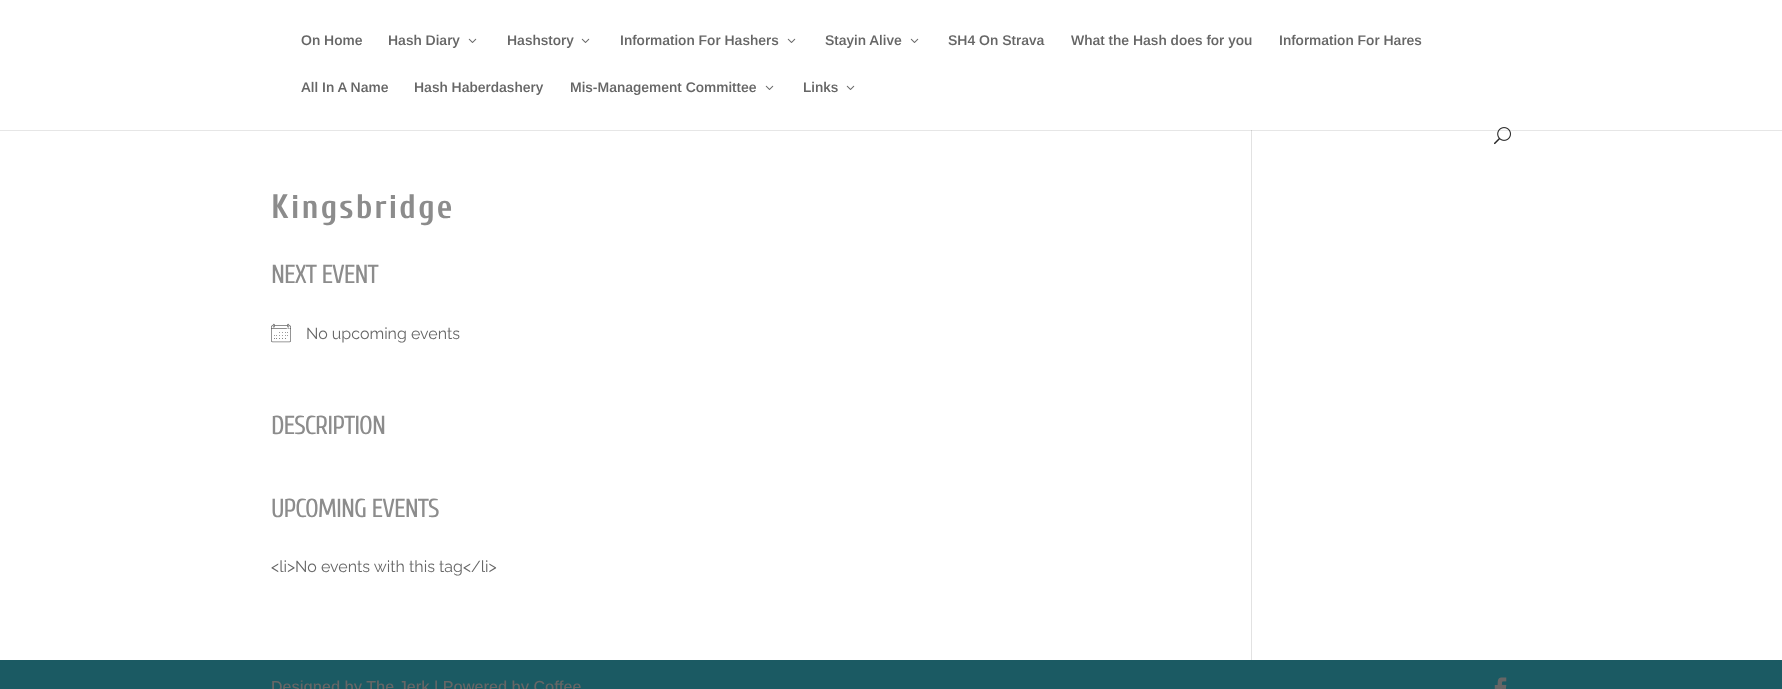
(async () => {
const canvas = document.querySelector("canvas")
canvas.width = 1782
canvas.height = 689
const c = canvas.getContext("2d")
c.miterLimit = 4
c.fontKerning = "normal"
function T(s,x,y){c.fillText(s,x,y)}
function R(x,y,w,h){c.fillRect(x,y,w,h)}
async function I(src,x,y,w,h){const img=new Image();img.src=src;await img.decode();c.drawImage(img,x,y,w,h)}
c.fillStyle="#fff"
R(0,0,1782,689)
c.fillStyle="#e6e6e6"
R(0,130,1782,1)
c.font="600 14px Arimo"
c.fillStyle="#666"
T("On Home",301,45)
T("Hash Diary",388,45)
await I("1.png",468,38,9,5)
T("Hashstory",507,45)
await I("1.png",581,38,9,5)
T("Information For Hashers",620,45)
await I("1.png",787,38,9,5)
T("Stayin Alive",825,45)
await I("1.png",910,38,9,5)
T("SH4 On Strava",948,45)
T("What the Hash does for you",1071,45)
T("Information For Hares",1279,45)
T("All In A Name",301,92)
T("Hash Haberdashery",414,92)
T("Mis-Management Committee",570,92)
await I("1.png",765,85,9,5)
T("Links",803,92)
await I("1.png",846,85,9,5)
await I("2.png",1494,127,17,18)
c.letterSpacing="2px"
c.font="bold 34px Cuprum"
c.fillStyle="#8c8c8c"
T("Kingsbridge",271,218)
c.letterSpacing="-1px"
c.font="26px Cuprum"
T("NEXT EVENT",271,283)
await I("3.png",271,323,20,20)
c.letterSpacing="0px"
c.font="16px Raleway"
c.fillStyle="#666"
T("No upcoming events",306,339)
c.letterSpacing="-1px"
c.font="26px Cuprum"
c.fillStyle="#8c8c8c"
T("DESCRIPTION",271,434)
T("UPCOMING EVENTS",271,517)
c.letterSpacing="0px"
c.font="16px Raleway"
c.fillStyle="#666"
T("<li>No events with this tag<\/li>",271,572)
c.fillStyle="#e2e2e2"
R(1251,130,1,530)
c.fillStyle="#cbcbcb"
R(1251,130,1,1)
c.fillStyle="#1b5a63"
R(0,660,1782,29)
c.font="500 16px Arimo"
c.fillStyle="#666"
T("Designed by The Jerk | Powered by Coffee",271,692)
await I("4.png",1494,677,13,12)
})()
